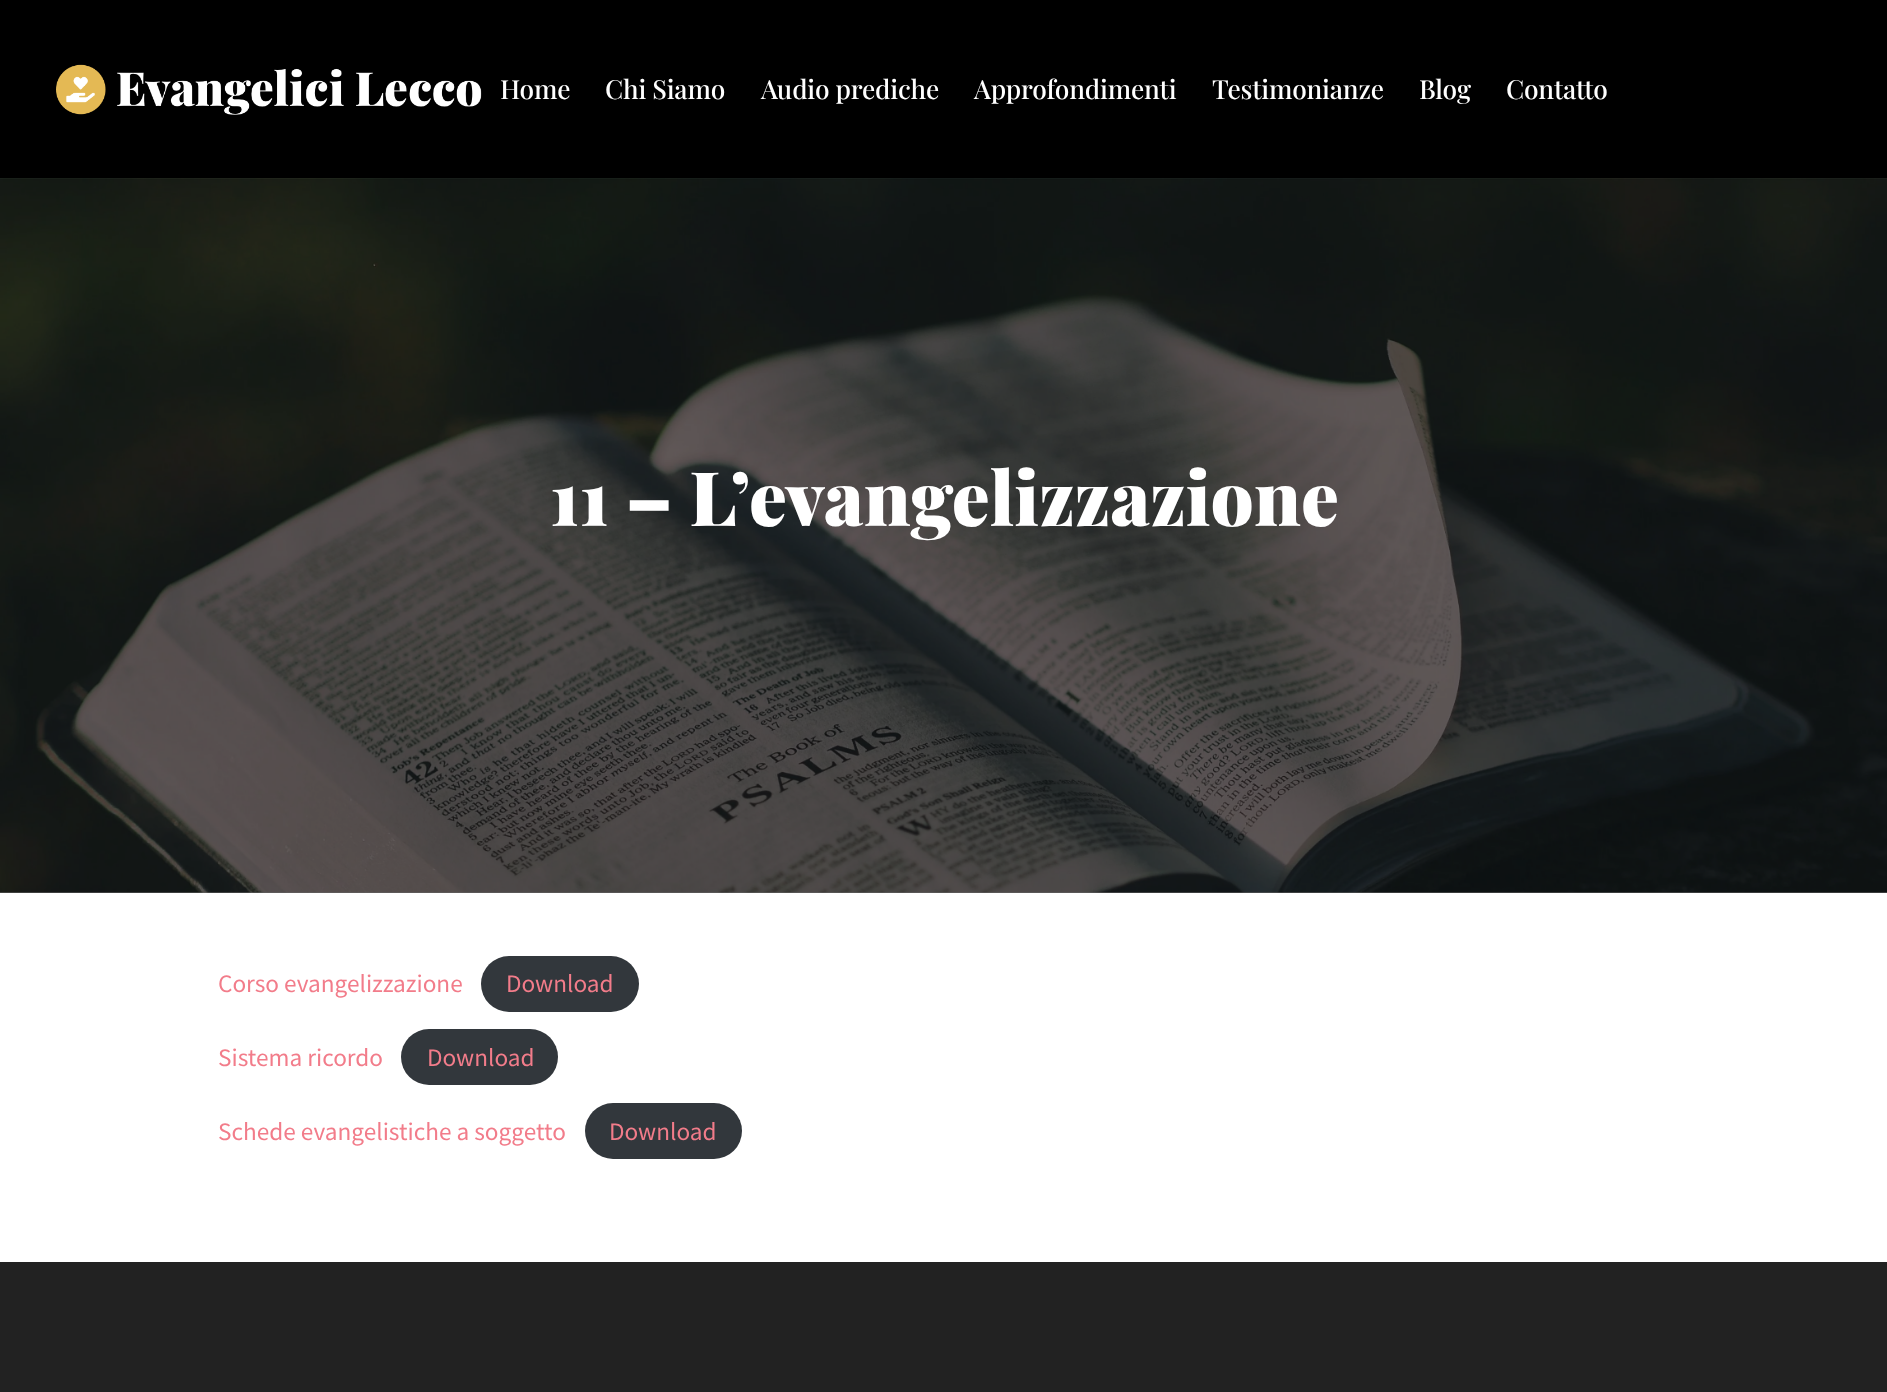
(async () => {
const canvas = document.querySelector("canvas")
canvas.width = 1887
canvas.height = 1392
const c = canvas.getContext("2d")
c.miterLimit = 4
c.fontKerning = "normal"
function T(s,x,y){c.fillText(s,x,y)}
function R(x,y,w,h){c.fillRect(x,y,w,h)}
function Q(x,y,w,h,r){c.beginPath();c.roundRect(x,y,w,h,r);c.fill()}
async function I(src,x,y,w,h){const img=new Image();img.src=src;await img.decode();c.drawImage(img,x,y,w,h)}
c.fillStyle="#fff"
R(0,0,1887,1392)
c.fillStyle="#666"
R(0,892,1887,1)
c.fillStyle="#000"
R(0,0,1887,179)
await I("1.png",56,64,426,51)
c.letterSpacing="-0.2px"
c.font="500 26.25px Playfair Display"
c.fillStyle="#fff"
T("Home",500,99)
T("Chi Siamo",605,99)
T("Audio prediche",761,99)
T("Approfondimenti",974,99)
T("Testimonianze",1212,99)
T("Blog",1419,99)
T("Contatto",1506,99)
await I("2.png",0,178,1887,715)
c.letterSpacing="0px"
c.font="900 75.25px Playfair Display"
T("11 – L’evangelizzazione",550,526)
c.font="25.25px Source Sans Pro"
c.fillStyle="#f27c8a"
T("Corso evangelizzazione",218,992)
c.fillStyle="#32373c"
Q(481,956,158,56,28)
c.fillStyle="#f27c8a"
T("Download",506,992)
T("Sistema ricordo",218,1066)
c.fillStyle="#32373c"
Q(401,1029,157,56,28)
c.fillStyle="#f27c8a"
T("Download",427,1066)
T("Schede evangelistiche a soggetto",218,1140)
c.fillStyle="#32373c"
Q(585,1103,157,56,28)
c.fillStyle="#f27c8a"
T("Download",609,1140)
c.fillStyle="#222"
R(0,1262,1887,130)
})()
